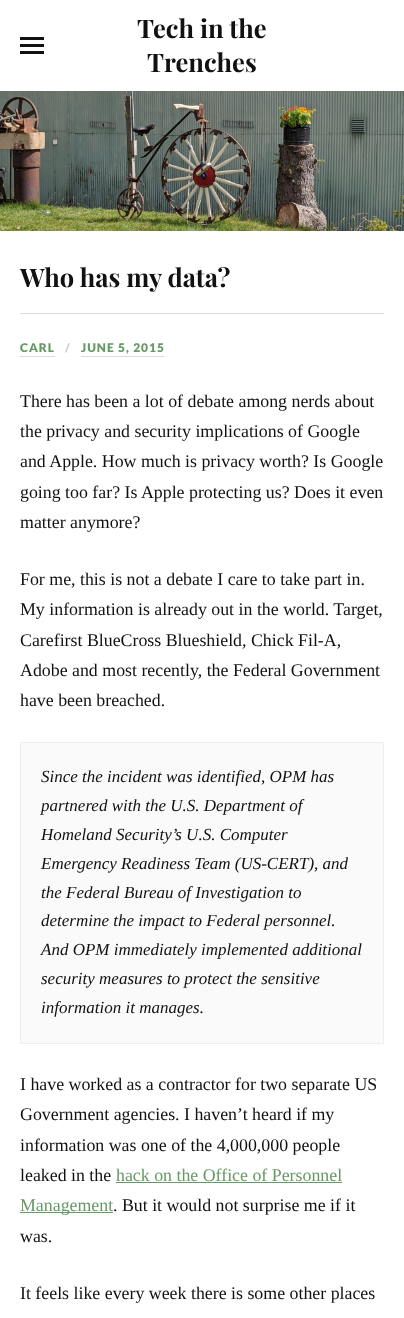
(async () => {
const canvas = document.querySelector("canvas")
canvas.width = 404
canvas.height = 1318
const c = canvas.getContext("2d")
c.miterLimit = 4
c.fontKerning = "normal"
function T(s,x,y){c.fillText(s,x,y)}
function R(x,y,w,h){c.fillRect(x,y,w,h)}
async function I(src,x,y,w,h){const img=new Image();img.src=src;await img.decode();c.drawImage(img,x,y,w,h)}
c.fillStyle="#fff"
R(0,0,404,1318)
c.fillStyle="#111"
R(20,37,24,3)
R(20,44,24,3)
R(20,51,24,3)
c.font="bold 25.5px Playfair Display"
T("Tech in the",137,38)
T("Trenches",147,72)
await I("1.png",0,91,404,140)
T("Who has my data?",20,287)
c.fillStyle="#ddd"
R(20,313,364,1)
c.letterSpacing="1px"
c.font="900 12px Lato"
c.fillStyle="#696"
T("CARL",20,352)
c.fillStyle="#ddd"
R(20,356,35,1)
c.fillStyle="#ccc"
T("/",65,352)
c.fillStyle="#696"
T("JUNE 5, 2015",81,352)
c.fillStyle="#ddd"
R(81,356,83,1)
c.letterSpacing="0px"
c.font="17.85px Liberation Serif"
c.fillStyle="#111"
T("There has been a lot of debate among nerds about",20,407)
T("the privacy and security implications of Google",20,437)
T("and Apple. How much is privacy worth? Is Google",20,467)
T("going too far? Is Apple protecting us? Does it even",20,498)
T("matter anymore?",20,528)
T("For me, this is not a debate I care to take part in.",20,585)
T("My information is already out in the world. Target,",20,615)
T("Carefirst BlueCross Blueshield, Chick Fil-A,",20,646)
T("Adobe and most recently, the Federal Government",20,676)
T("have been breached.",20,706)
c.fillStyle="#fafafa"
c.beginPath()
c.rect(20.5,742.5,363,301)
c.fill()
c.strokeStyle="#eee"
c.stroke()
c.font="italic 17px Liberation Serif"
c.fillStyle="#111"
T("Since the incident was identified, OPM has",41,782)
T("partnered with the U.S. Department of",41,811)
T("Homeland Security’s U.S. Computer",41,840)
T("Emergency Readiness Team (US-CERT), and",41,869)
T("the Federal Bureau of Investigation to",41,898)
T("determine the impact to Federal personnel.",41,926)
T("And OPM immediately implemented additional",41,955)
T("security measures to protect the sensitive",41,984)
T("information it manages.",41,1013)
c.font="17.85px Liberation Serif"
T("I have worked as a contractor for two separate US",20,1090)
T("Government agencies. I haven’t heard if my",20,1120)
T("information was one of the 4,000,000 people",20,1151)
T("leaked in the",20,1181)
c.fillStyle="#696"
T("hack on the Office of Personnel",116,1181)
R(116,1182,226,1)
R(20,1212,93,1)
T("Management",20,1211)
c.fillStyle="#111"
T(". But it would not surprise me if it",113,1211)
T("was.",20,1242)
T("It feels like every week there is some other places",20,1299)
})()
